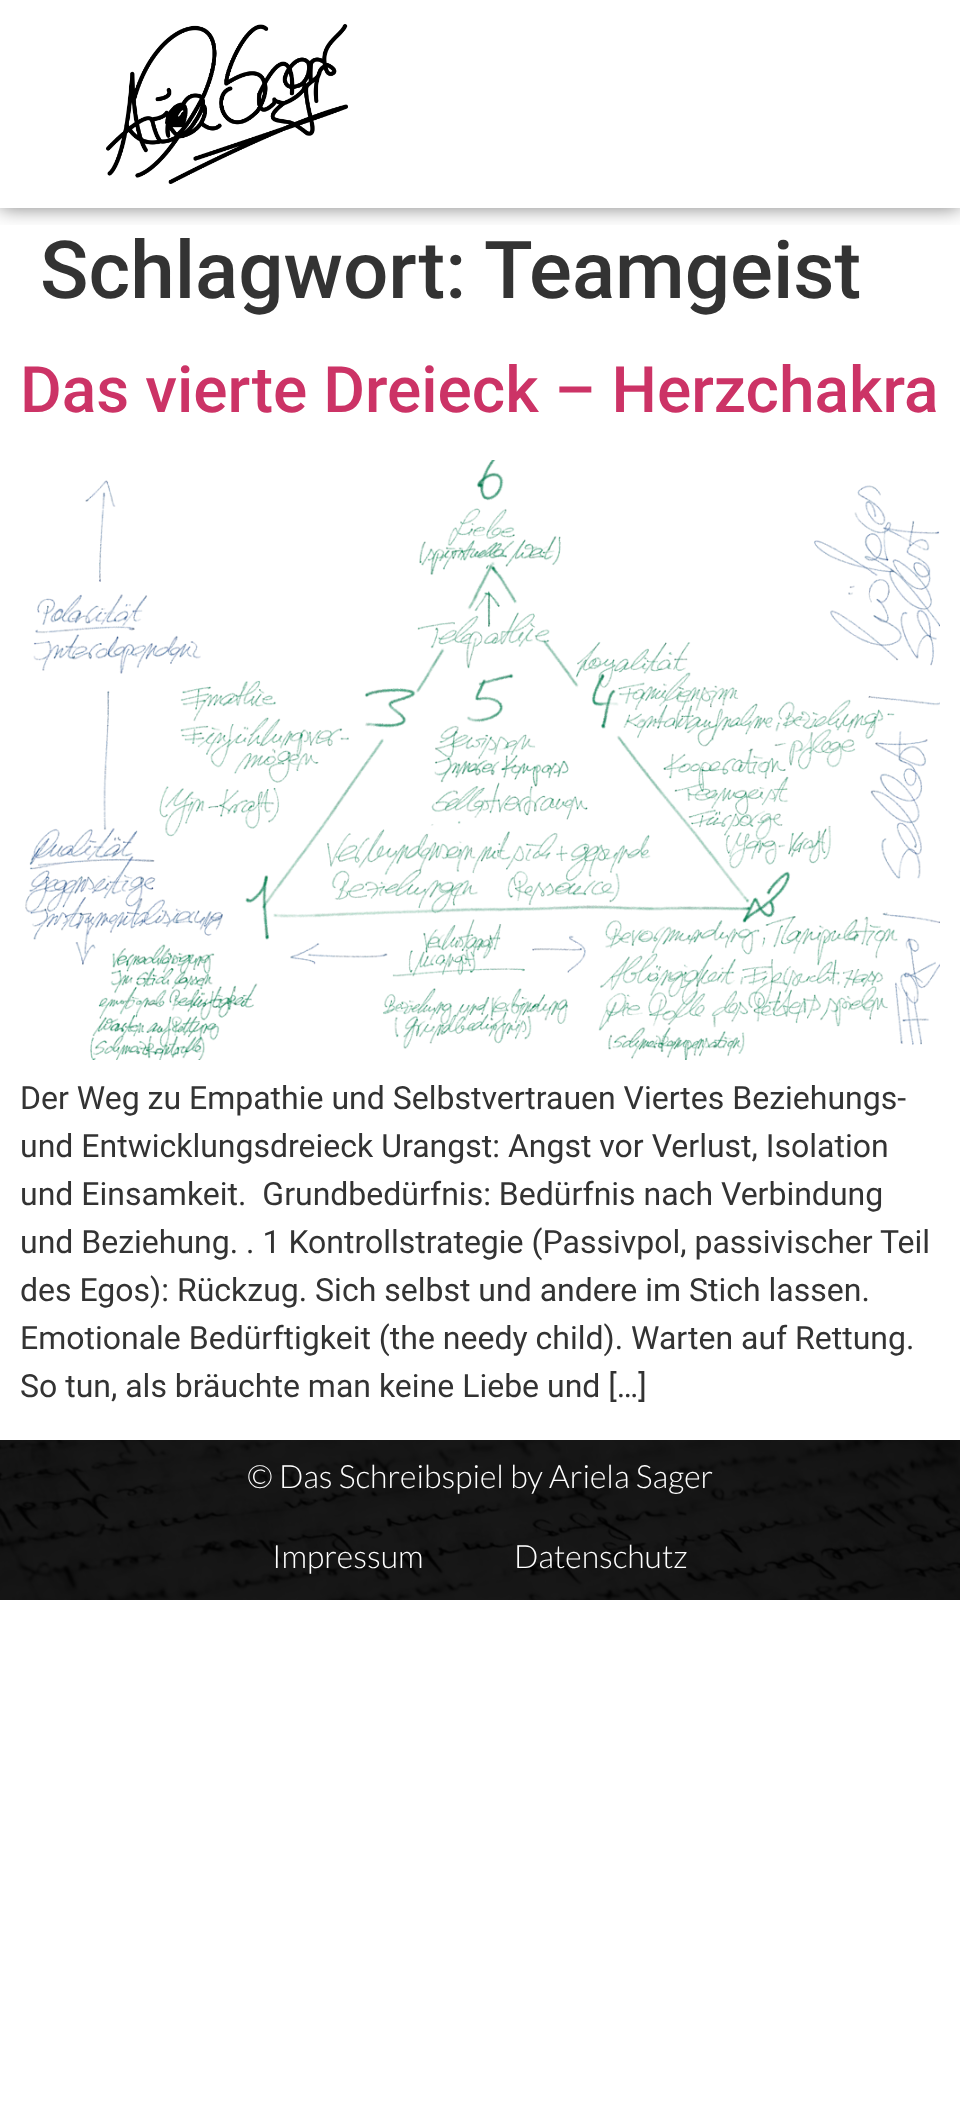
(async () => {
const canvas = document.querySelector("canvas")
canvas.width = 960
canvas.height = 2102
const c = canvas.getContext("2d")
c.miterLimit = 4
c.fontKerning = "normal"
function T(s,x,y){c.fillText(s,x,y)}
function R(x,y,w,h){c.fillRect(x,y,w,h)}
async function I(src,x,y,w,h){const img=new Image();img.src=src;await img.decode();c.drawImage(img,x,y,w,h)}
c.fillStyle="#fff"
R(0,0,960,2102)
c.save()
c.beginPath()
c.rect(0,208,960,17)
c.clip()
c.fillStyle="#00000080"
c.filter="blur(10px)"
c.beginPath()
c.rect(0,0,960,208)
c.fill()
c.filter="none"
c.restore()
await I("1.png",106,24,242,160)
c.font="500 80px Roboto"
c.fillStyle="#333"
T("Schlagwort:",40,298)
T("Teamgeist",484,298)
c.font="500 64px Roboto"
c.fillStyle="#c36"
T("Das vierte Dreieck – Herzchakra",20,412)
await I("2.png",25,460,915,600)
c.font="32px Roboto"
c.fillStyle="#333"
T("Der Weg zu Empathie und Selbstvertrauen Viertes Beziehungs-",20,1109)
T("und Entwicklungsdreieck Urangst: Angst vor Verlust, Isolation",20,1157)
T("und Einsamkeit.  Grundbedürfnis: Bedürfnis nach Verbindung",20,1205)
T("und Beziehung. . 1 Kontrollstrategie (Passivpol, passivischer Teil",20,1253)
T("des Egos): Rückzug. Sich selbst und andere im Stich lassen.",20,1301)
T("Emotionale Bedürftigkeit (the needy child). Warten auf Rettung.",20,1349)
T("So tun, als bräuchte man keine Liebe und […]",20,1397)
await I("3.png",0,1440,960,160)
c.font="300 32px Lato"
c.fillStyle="#fff"
T("© Das Schreibspiel by Ariela Sager",247,1488)
T("Impressum",272,1568)
T("Datenschutz",514,1568)
})()
